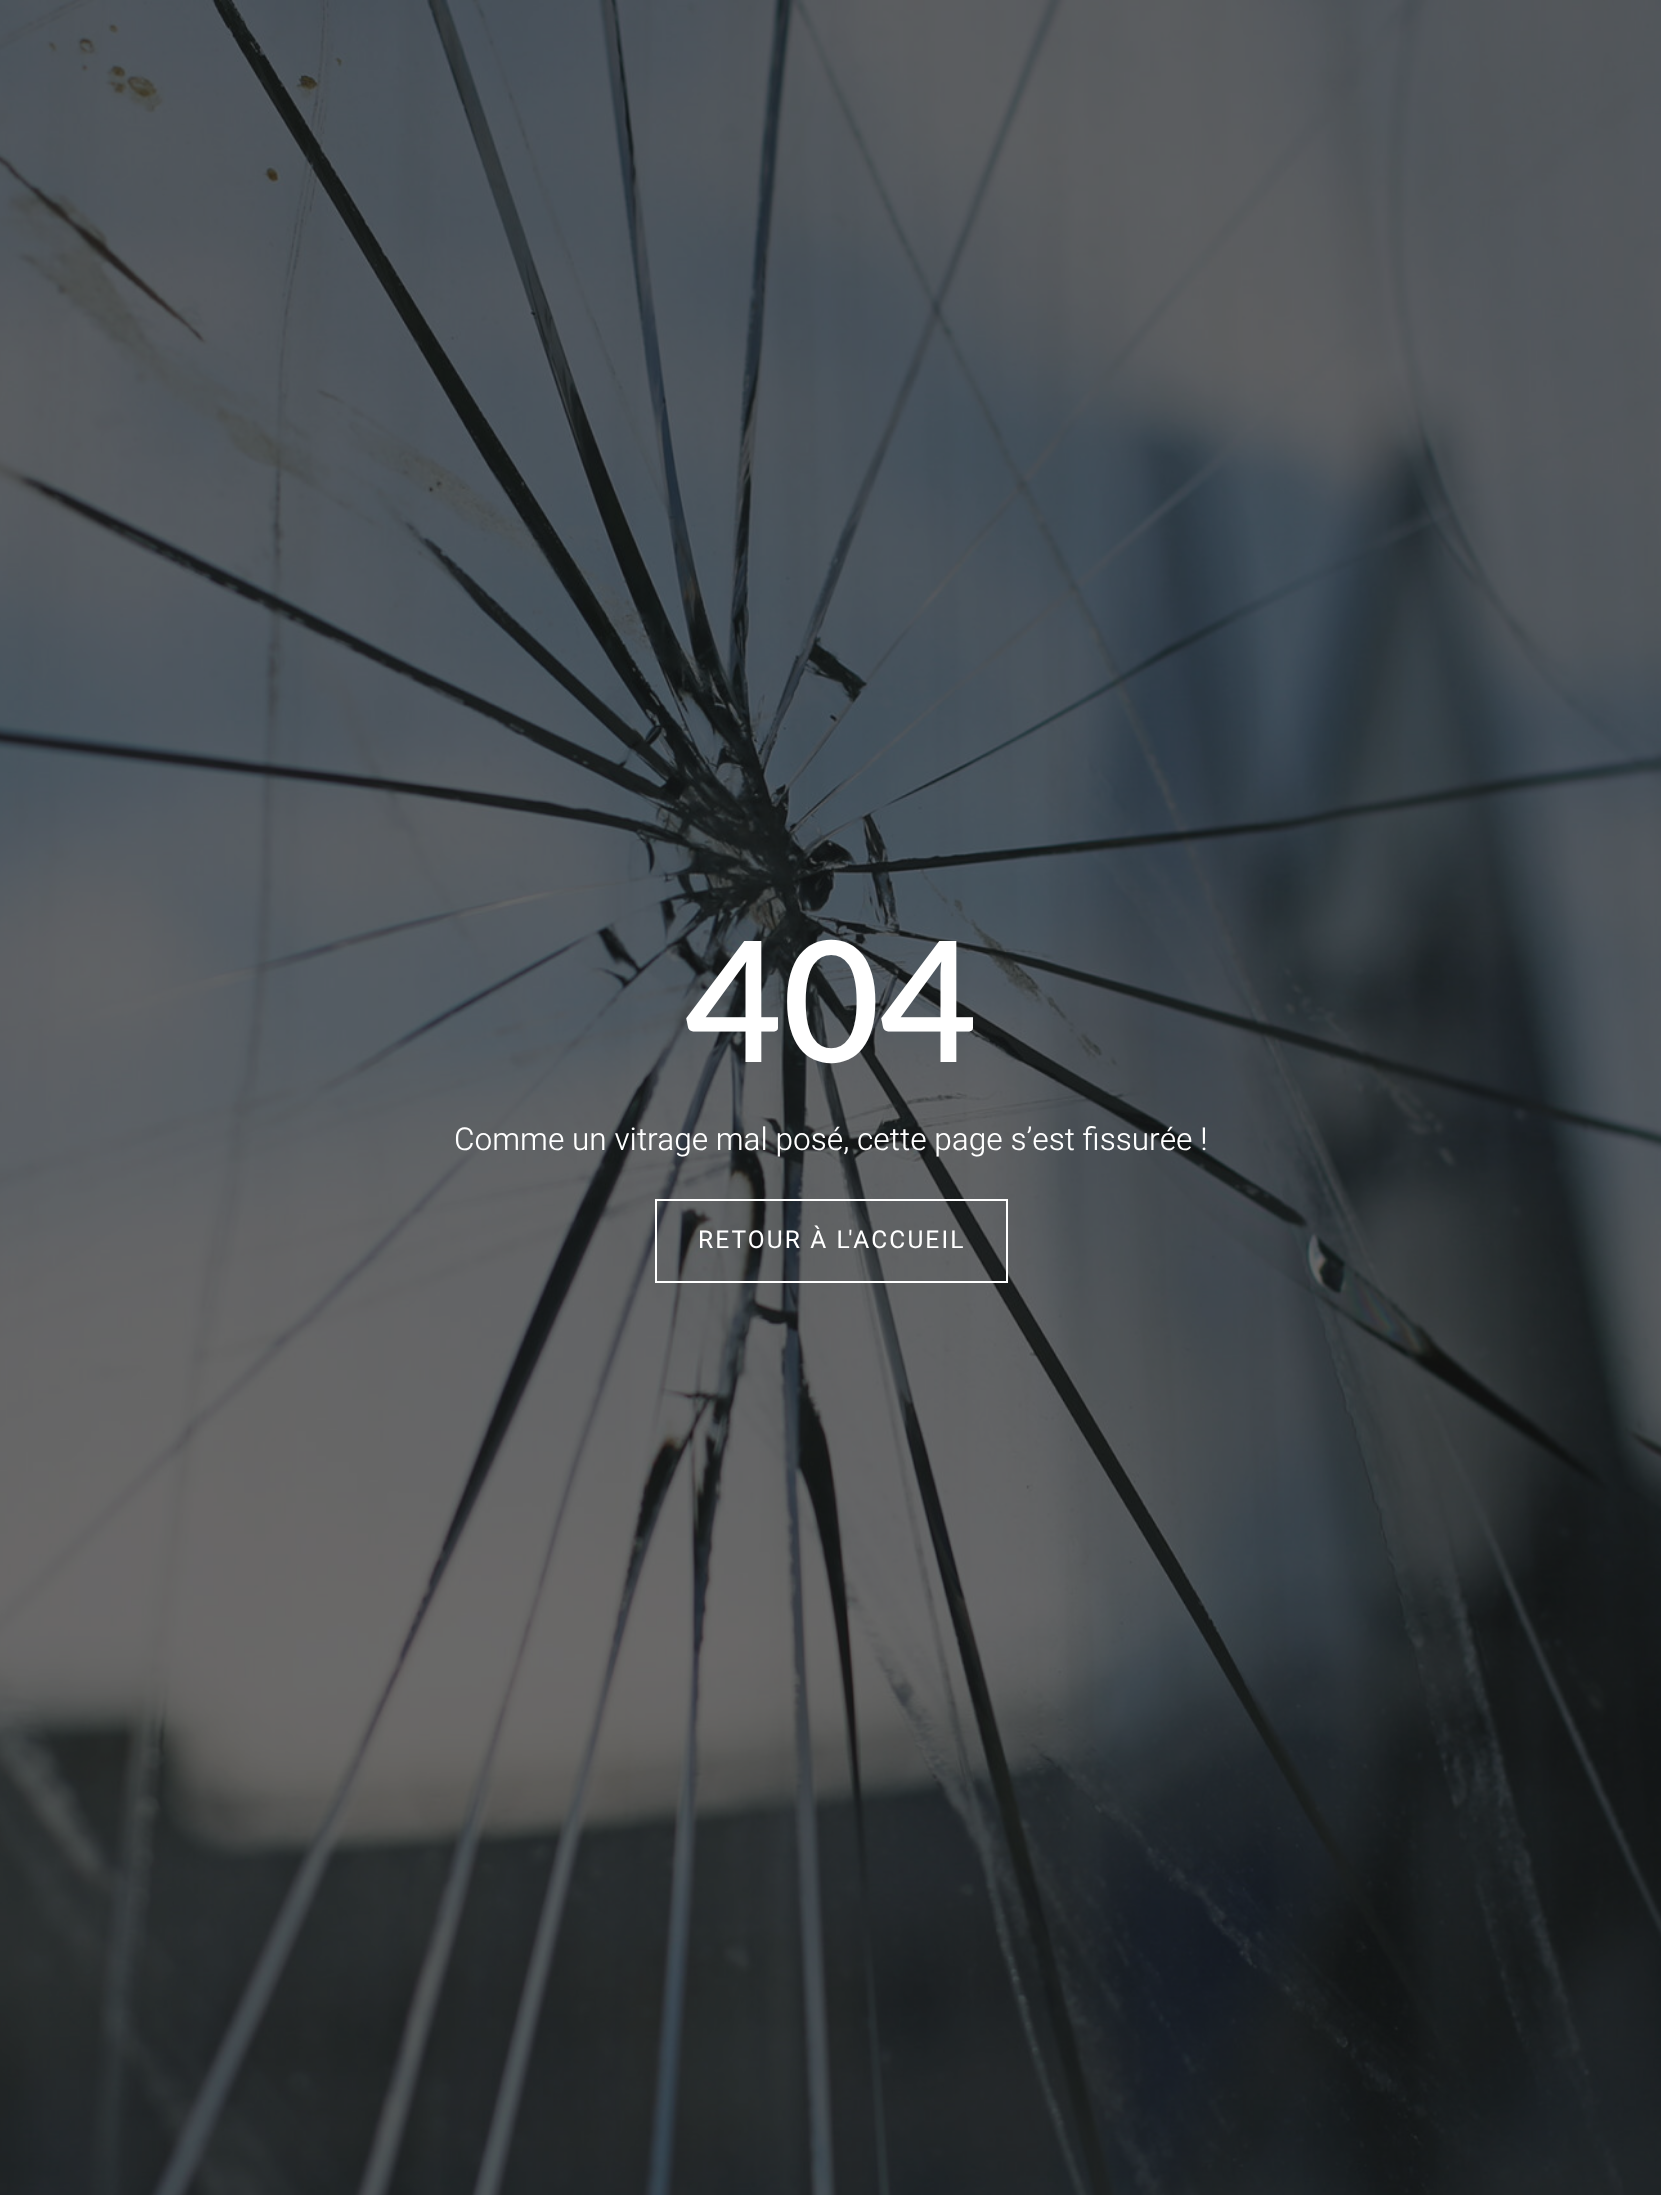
(async () => {
const canvas = document.querySelector("canvas")
canvas.width = 1661
canvas.height = 2195
const c = canvas.getContext("2d")
c.miterLimit = 4
c.fontKerning = "normal"
function T(s,x,y){c.fillText(s,x,y)}
function R(x,y,w,h){c.fillRect(x,y,w,h)}
async function I(src,x,y,w,h){const img=new Image();img.src=src;await img.decode();c.drawImage(img,x,y,w,h)}
c.fillStyle="#fff"
R(0,0,1661,2195)
await I("1.png",0,0,1661,2195)
c.font="600 168px Lato"
T("404",685,1062)
c.font="300 31.5px Heebo"
T("Comme un vitrage mal posé, cette page s’est fissurée !",454,1150)
c.strokeStyle="#fff"
c.lineWidth=2
c.strokeRect(656,1200,351,82)
c.letterSpacing="2.1px"
c.font="24.5px Heebo"
T("RETOUR À L'ACCUEIL",698,1248)
})()
